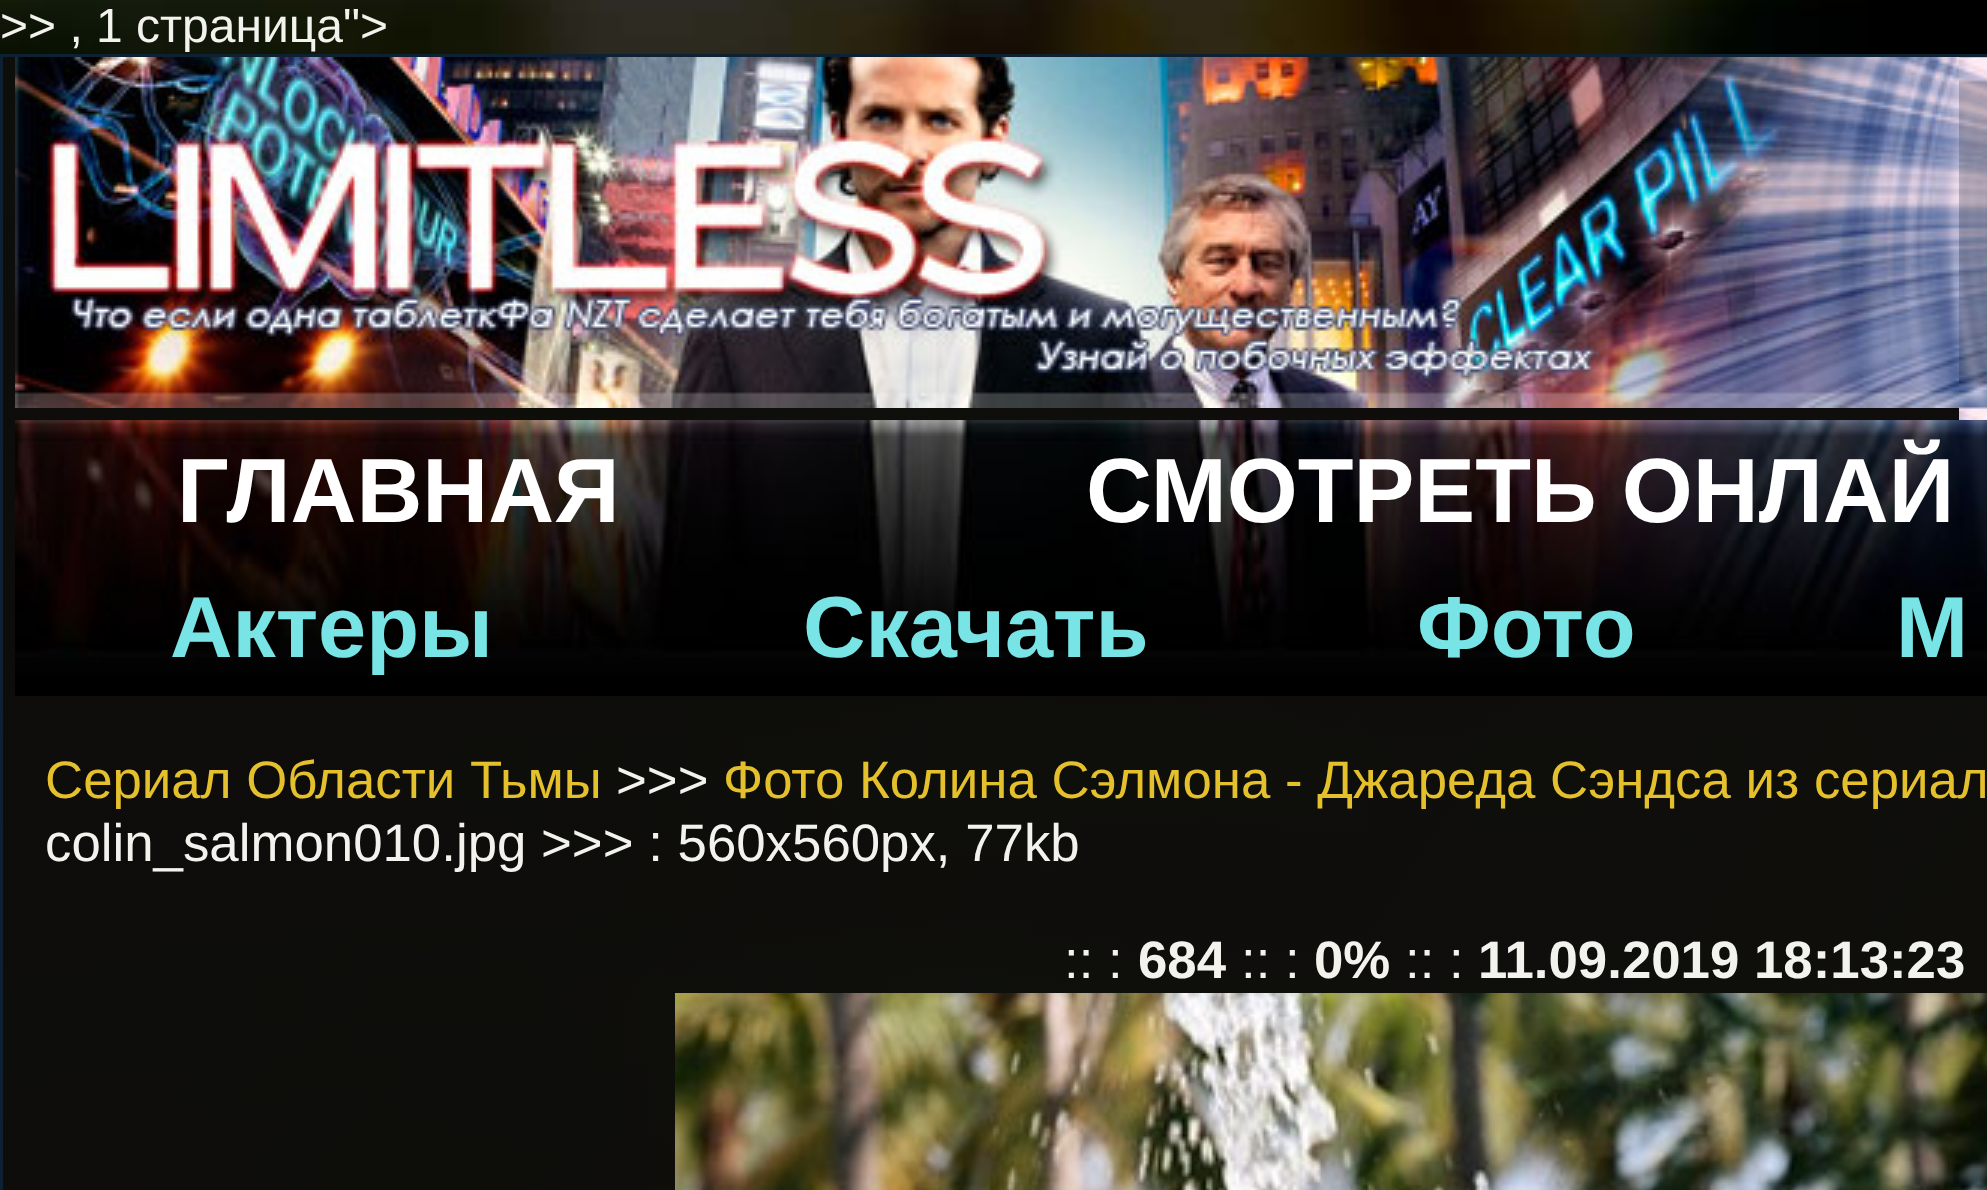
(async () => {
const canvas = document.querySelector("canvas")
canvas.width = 1987
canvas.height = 1190
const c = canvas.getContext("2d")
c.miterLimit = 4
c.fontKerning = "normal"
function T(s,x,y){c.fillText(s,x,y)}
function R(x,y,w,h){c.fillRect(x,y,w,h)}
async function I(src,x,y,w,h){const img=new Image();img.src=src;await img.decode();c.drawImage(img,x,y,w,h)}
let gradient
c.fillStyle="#000"
R(0,0,1987,1190)
await I("1.png",0,0,1868,1190)
c.font="48px Liberation Sans"
c.fillStyle="#f3f3ee"
T(">> , 1 страница\">",0,42)
gradient = c.createLinearGradient(-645,1082,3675,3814)
gradient.addColorStop(0,"#0e0d0be6")
gradient.addColorStop(1,"#171611bf")
c.fillStyle = gradient
R(3,57,1984,1133)
c.strokeStyle="#0e2133"
c.lineWidth=3
c.strokeRect(1.5,55.5,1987,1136)
await I("2.png",15,57,1944,351)
await I("3.png",1959,57,28,363)
await I("4.png",15,420,1972,276)
c.font="bold 91.25px Liberation Sans"
c.fillStyle="#fff"
T("ГЛАВНАЯ",177,522)
T("СМОТРЕТЬ ОНЛАЙ",1086,522)
c.font="bold 86.5px Liberation Sans"
c.fillStyle="#78e4e5"
T("Актеры",170,657)
T("Скачать",803,657)
T("Фото",1417,657)
T("М",1896,657)
c.font="52.8px Liberation Sans"
c.fillStyle="#e5c02d"
T("Сериал Области Тьмы",45,798)
c.fillStyle="#f3f3ee"
T(">>>",616,798)
c.fillStyle="#e5c02d"
T("Фото Колина Сэлмона - Джареда Сэндса из сериал",723,798)
c.fillStyle="#f3f3ee"
T("colin_salmon010.jpg >>> : 560x560px, 77kb",45,861)
T(":: :",1064,978)
c.font="bold 52.8px Liberation Sans"
T("684",1138,978)
c.font="52.8px Liberation Sans"
T(":: :",1241,978)
c.font="bold 52.8px Liberation Sans"
T("0%",1314,978)
c.font="52.8px Liberation Sans"
T(":: :",1405,978)
c.font="bold 52.8px Liberation Sans"
T("11.09.2019 18:13:23",1478,978)
await I("5.png",675,993,1312,197)
})()
